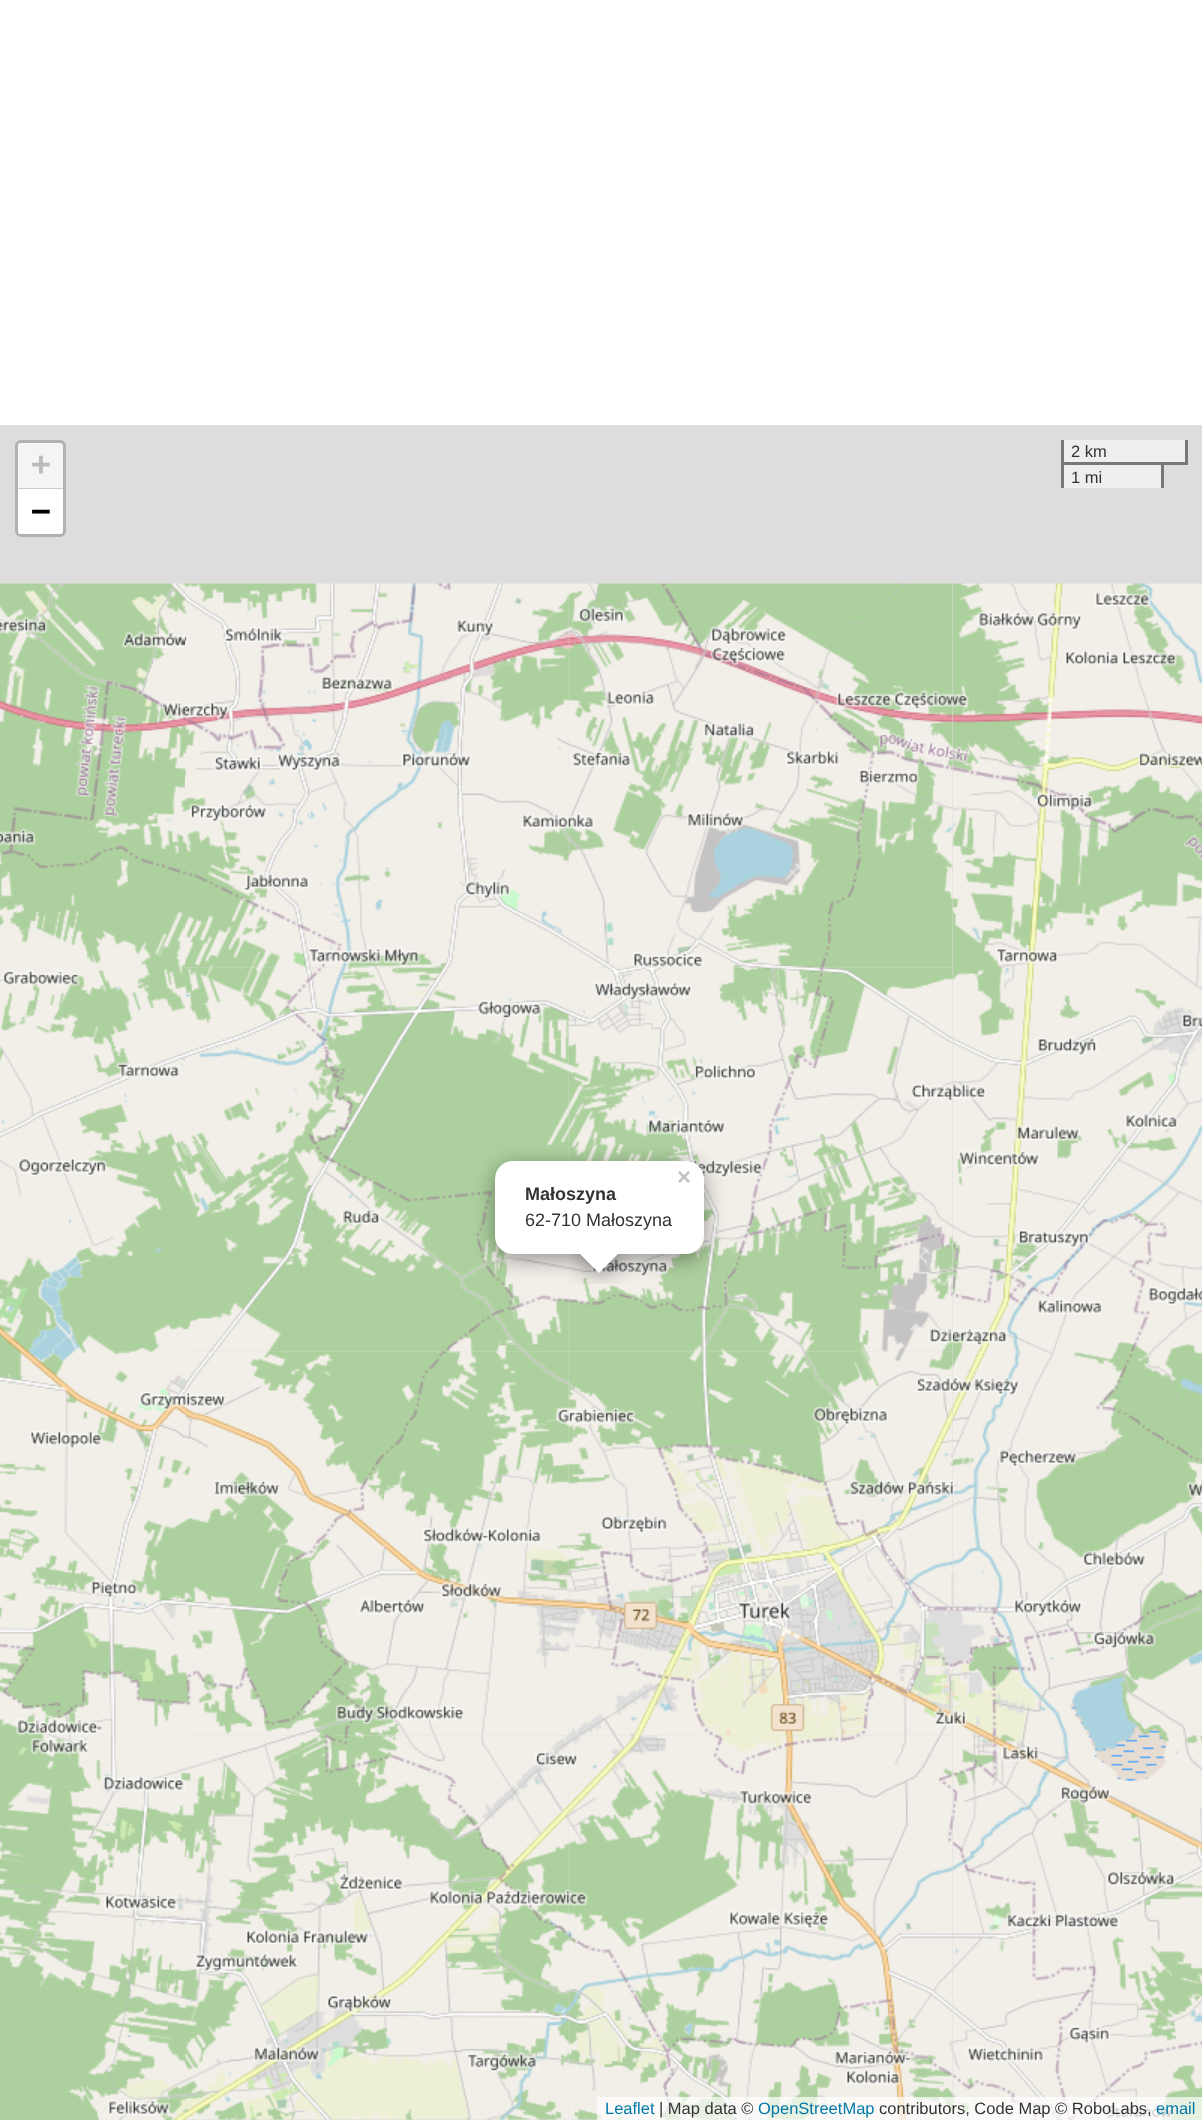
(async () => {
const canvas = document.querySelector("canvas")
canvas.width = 1202
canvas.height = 2120
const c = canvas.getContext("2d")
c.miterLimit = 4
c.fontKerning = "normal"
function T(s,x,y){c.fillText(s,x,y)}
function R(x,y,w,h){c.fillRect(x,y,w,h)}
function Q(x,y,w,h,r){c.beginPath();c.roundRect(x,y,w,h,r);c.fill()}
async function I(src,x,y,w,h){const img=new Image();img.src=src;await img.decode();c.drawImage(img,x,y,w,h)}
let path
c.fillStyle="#fff"
R(0,0,1202,2120)
c.fillStyle="#ddd"
R(0,425,1202,1695)
c.fillStyle="#eee"
R(1064,465,97,23)
c.beginPath()
c.roundRect(16.5,441.5,48,94,4.5)
c.strokeStyle="#b1b1b1"
c.lineWidth=3
c.stroke()
c.fillStyle="#f4f4f4"
c.beginPath()
c.roundRect(18,443,45,46,[3,3,0,0])
c.fill()
c.fillStyle="#ccc"
R(18,488,45,1)
c.font="bold 33px DejaVu Sans Mono"
c.fillStyle="#bbb"
T("+",31,475)
c.fillStyle="#fff"
c.beginPath()
c.roundRect(18,489,45,45,[0,0,3,3])
c.fill()
c.fillStyle="#000"
T("−",31,522)
c.fillStyle="#eee"
R(1064,440,121,22)
c.fillStyle="#777"
R(1185,440,3,25)
R(1164,462,24,3)
R(1061,440,3,25)
c.font="16.5px Liberation Sans"
c.fillStyle="#333"
T("2 km",1071,457)
c.fillStyle="#777"
R(1061,462,103,3)
R(1161,462,3,26)
R(1061,462,3,26)
c.fillStyle="#333"
T("1 mi",1071,483)
await I("7.png",568,967,385,385)
await I("11.png",568,1351,385,385)
await I("6.png",185,967,384,385)
await I("10.png",185,1351,384,385)
await I("15.png",568,1735,385,385)
await I("8.png",953,968,249,384)
await I("12.png",953,1351,249,385)
await I("16.png",953,1735,249,385)
c.fillStyle="#ffffffb3"
R(597,2097,605,23)
c.fillStyle="#0078a8"
T("Leaflet",605,2114)
c.fillStyle="#333"
T("| Map data ©",659,2114)
c.fillStyle="#0078a8"
T("OpenStreetMap",758,2114)
c.fillStyle="#333"
T("contributors, Code Map © RoboLabs,",879,2114)
c.fillStyle="#0078a8"
T("email",1156,2114)
await I("3.png",568,583,385,385)
await I("2.png",184,583,385,385)
await I("1.png",0,583,185,385)
await I("4.png",953,583,249,385)
await I("5.png",0,968,185,384)
await I("9.png",0,1351,185,385)
await I("13.png",0,1735,185,385)
await I("14.png",185,1735,384,385)
c.fillStyle="#00000066"
c.filter="blur(10.5px)"
c.beginPath()
c.roundRect(495,1166,209,93,18)
c.fill()
c.filter="none"
c.fillStyle="#fff"
Q(495,1161,209,93,18)
c.font="bold 24px Liberation Sans"
c.fillStyle="#c3c3c3"
T("×",677,1185)
c.font="bold 18px Liberation Sans"
c.fillStyle="#333"
T("Małoszyna",525,1200)
c.font="18px Liberation Sans"
T("62-710 Małoszyna",525,1226)
c.save()
c.beginPath()
c.rect(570,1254,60,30)
c.clip()
c.fillStyle="#00000066"
c.filter="blur(10.5px)"
c.beginPath()
c.rect(585,1244,29,28)
c.fill()
c.filter="none"
c.restore()
c.save()
c.beginPath()
c.rect(570,1254,60,30)
c.clip()
c.fillStyle="#fff"
path = new Path2D("M599 1233l20 20l-20 20l-20-20z")
c.fill(path)
c.restore()
})()
